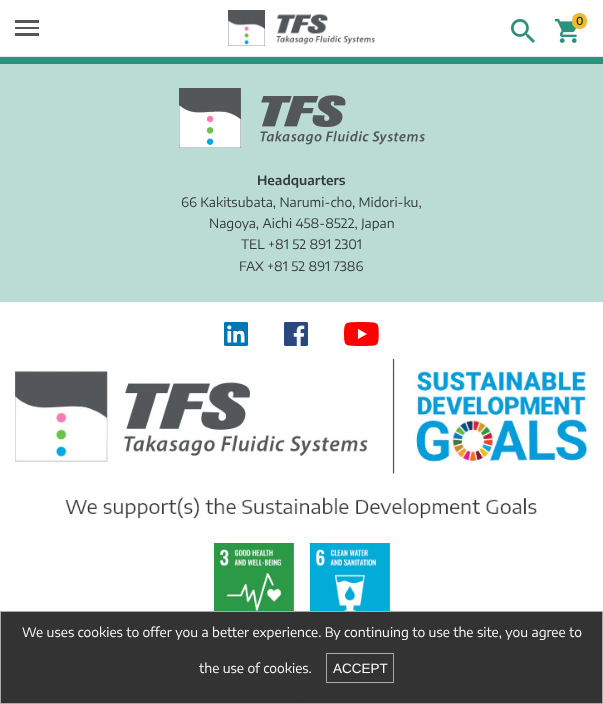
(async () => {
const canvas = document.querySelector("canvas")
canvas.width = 603
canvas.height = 704
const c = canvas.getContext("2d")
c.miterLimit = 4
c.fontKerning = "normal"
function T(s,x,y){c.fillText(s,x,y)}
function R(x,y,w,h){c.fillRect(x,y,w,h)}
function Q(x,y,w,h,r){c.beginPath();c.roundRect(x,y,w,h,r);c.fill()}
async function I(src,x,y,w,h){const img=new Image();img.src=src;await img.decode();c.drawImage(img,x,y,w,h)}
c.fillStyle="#fff"
R(0,0,603,704)
c.fillStyle="#e3e7eb"
R(0,56,603,1)
c.fillStyle="#53565a"
R(15,20,24,3)
R(15,27,24,2)
R(15,33,24,3)
await I("1.png",228,10,147,36)
await I("2.png",511,19,24,24)
await I("3.png",555,19,22,24)
c.fillStyle="#ebbc31"
Q(572,13,15,16,7)
c.font="500 11px Encode Sans Semi Expanded"
c.fillStyle="#15181b"
T("0",576,25)
c.fillStyle="#2c927b"
R(0,57,603,7)
c.fillStyle="#badcd4"
R(0,64,603,238)
await I("4.png",179,88,246,60)
c.font="600 13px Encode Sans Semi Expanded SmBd"
c.fillStyle="#35383b"
T("Headquarters",257,185)
c.font="13px Encode Sans Semi Expanded"
T("66 Kakitsubata, Narumi-cho, Midori-ku,",181,207)
T("Nagoya, Aichi 458-8522, Japan",209,228)
T("TEL +81 52 891 2301",241,249)
T("FAX +81 52 891 7386",239,271)
await I("5.png",224,322,24,24)
await I("6.png",284,322,24,24)
await I("7.png",344,322,35,24)
await I("8.png",15,359,573,160)
await I("9.png",214,543,80,68)
await I("10.png",310,543,80,68)
c.fillStyle="#333"
c.beginPath()
c.rect(.5,611.5,602,92)
c.fill()
c.strokeStyle="#aaa"
c.stroke()
c.fillStyle="#fff"
T("We uses cookies to offer you a better experience. By continuing to use the site, you agree to",22,637)
T("the use of cookies.",199,673)
c.strokeRect(326.5,653.5,67,29)
c.font="13.5px Liberation Sans"
T("ACCEPT",333,673)
})()
